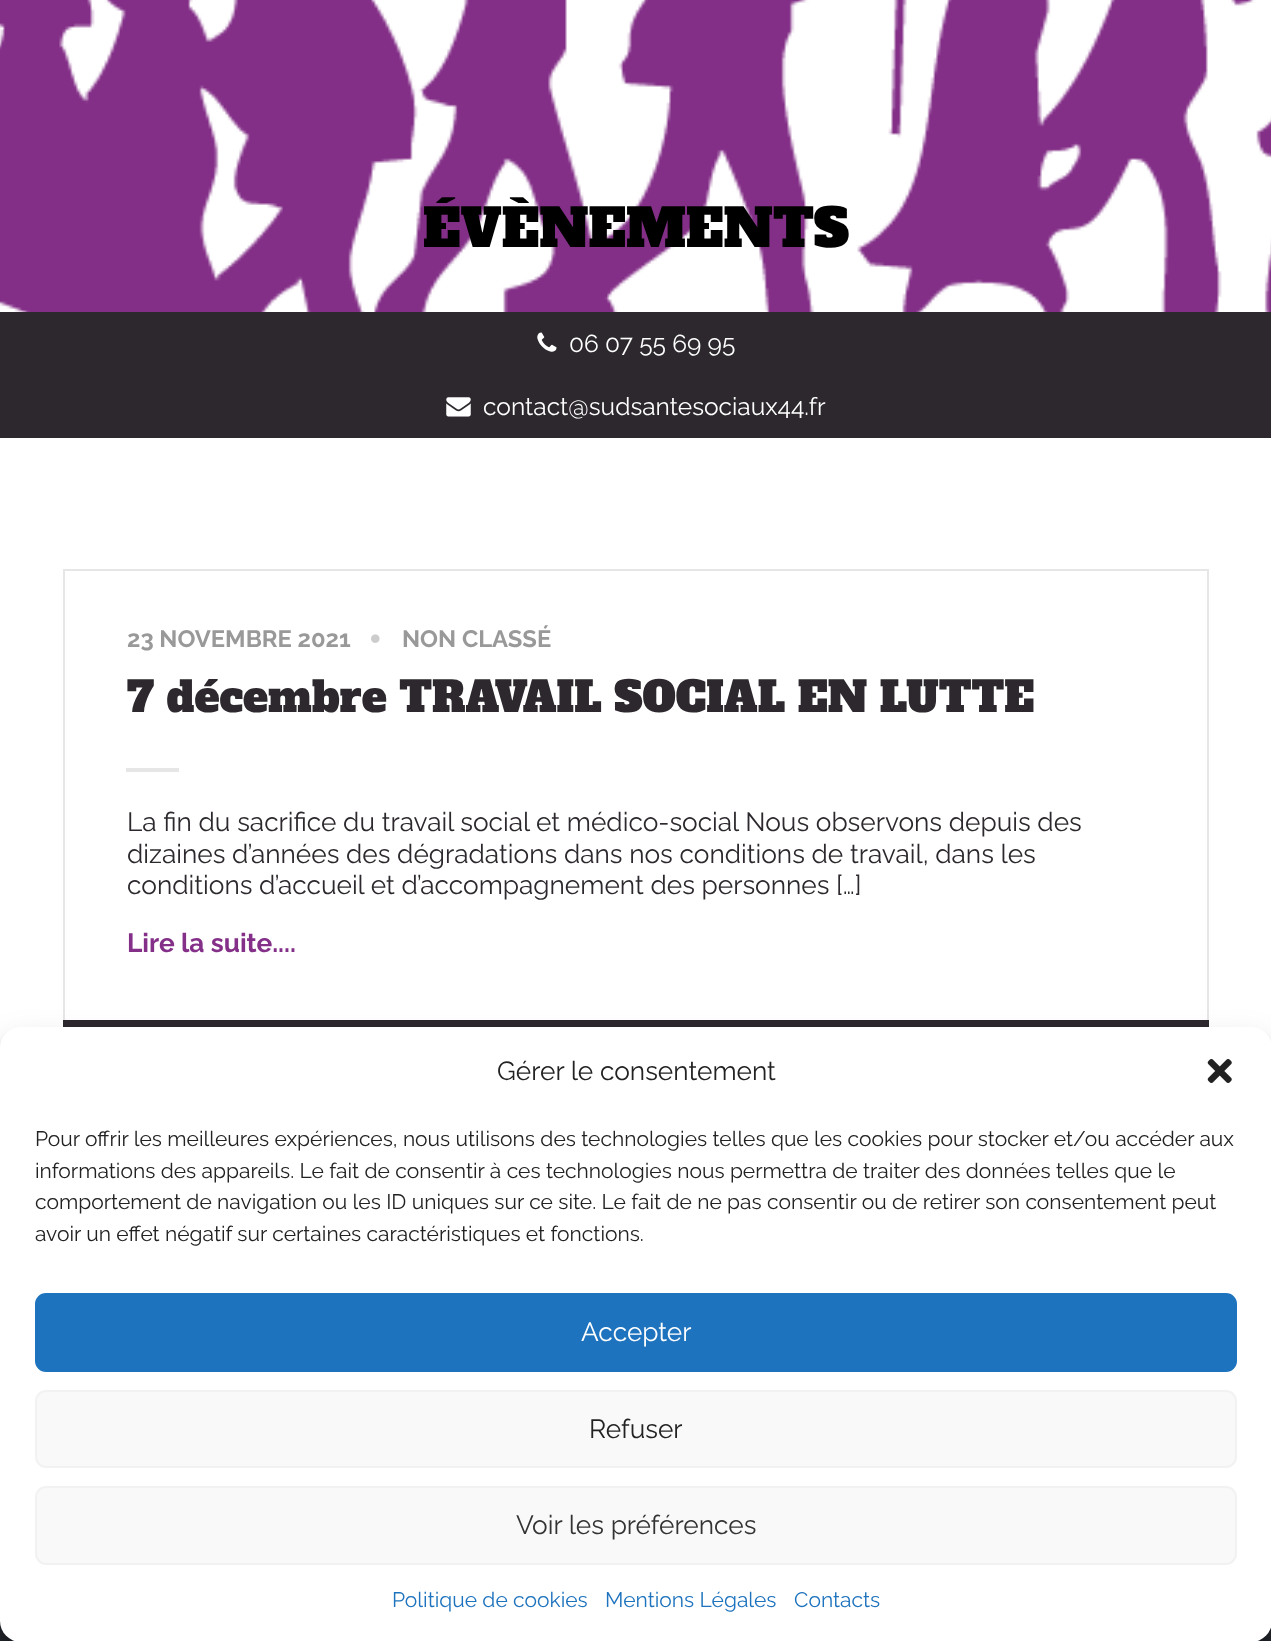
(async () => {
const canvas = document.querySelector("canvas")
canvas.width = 1271
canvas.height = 1641
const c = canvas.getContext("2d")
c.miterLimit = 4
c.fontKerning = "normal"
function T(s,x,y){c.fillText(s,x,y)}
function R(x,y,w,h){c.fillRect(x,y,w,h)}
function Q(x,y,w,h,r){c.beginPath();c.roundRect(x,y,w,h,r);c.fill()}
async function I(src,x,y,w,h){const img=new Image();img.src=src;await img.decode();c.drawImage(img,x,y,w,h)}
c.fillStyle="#fff"
R(0,0,1271,1641)
await I("1.png",0,0,1271,312)
c.font="52.5px Alfa Slab One"
c.fillStyle="#000"
T("ÉVÈNEMENTS",423,247)
c.fillStyle="#2c282d"
R(0,312,1271,126)
await I("2.png",537,332,20,20)
c.font="24.5px Raleway"
c.fillStyle="#fff"
T("06 07 55 69 95",569,352)
await I("3.png",446,397,25,20)
T("contact@sudsantesociaux44.fr",483,415)
c.strokeStyle="#e6e6e6"
c.lineWidth=2
c.strokeRect(64,570,1144,451)
c.font="bold 23.75px Raleway"
c.fillStyle="#999"
T("23 NOVEMBRE 2021",127,647)
await I("4.png",371,634,9,9)
T("NON CLASSÉ",402,647)
c.font="42px Alfa Slab One"
c.fillStyle="#2c282d"
T("7 décembre TRAVAIL SOCIAL EN LUTTE",127,712)
c.fillStyle="#e6e6e6"
R(126,768,53,4)
c.font="26.25px Raleway"
c.fillStyle="#2c282d"
T("La fin du sacrifice du travail social et médico-social Nous observons depuis des",127,831)
T("dizaines d’années des dégradations dans nos conditions de travail, dans les",127,863)
T("conditions d’accueil et d’accompagnement des personnes […]",127,894)
c.font="bold 26.25px Raleway"
c.fillStyle="#843089"
T("Lire la suite....",127,952)
c.fillStyle="#2c282d"
R(63,1020,1146,7)
c.fillStyle="#25292f"
R(0,1621,1271,20)
c.fillStyle="#0000003b"
c.filter="blur(5px)"
c.beginPath()
c.roundRect(0,1038,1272,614,21)
c.fill()
c.filter="none"
c.fillStyle="#00000030"
c.filter="blur(17.5px)"
c.beginPath()
c.roundRect(0,1045,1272,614,21)
c.fill()
c.filter="none"
c.fillStyle="#fff"
Q(0,1027,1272,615,21)
c.font="26.25px Raleway"
c.fillStyle="#222"
T("Gérer le consentement",497,1080)
await I("5.png",1207,1059,25,24)
c.font="21px Raleway"
T("Pour offrir les meilleures expériences, nous utilisons des technologies telles que les cookies pour stocker et/ou accéder aux",35,1146)
T("informations des appareils. Le fait de consentir à ces technologies nous permettra de traiter des données telles que le",35,1178)
T("comportement de navigation ou les ID uniques sur ce site. Le fait de ne pas consentir ou de retirer son consentement peut",35,1209)
T("avoir un effet négatif sur certaines caractéristiques et fonctions.",35,1241)
c.fillStyle="#1e73be"
c.beginPath()
c.roundRect(36,1294,1200,77,10)
c.fill()
c.strokeStyle="#1e73be"
c.stroke()
c.font="26.25px Raleway"
c.fillStyle="#fff"
T("Accepter",581,1341)
c.fillStyle="#f9f9f9"
c.beginPath()
c.roundRect(36,1391,1200,76,10)
c.fill()
c.strokeStyle="#f2f2f2"
c.stroke()
c.fillStyle="#222"
T("Refuser",589,1438)
c.fillStyle="#f9f9f9"
c.beginPath()
c.roundRect(36,1487,1200,77,10)
c.fill()
c.stroke()
c.fillStyle="#333"
T("Voir les préférences",516,1534)
c.font="21px Raleway"
c.fillStyle="#1e73be"
T("Politique de cookies",392,1607)
T("Mentions Légales",605,1607)
T("Contacts",794,1607)
})()
